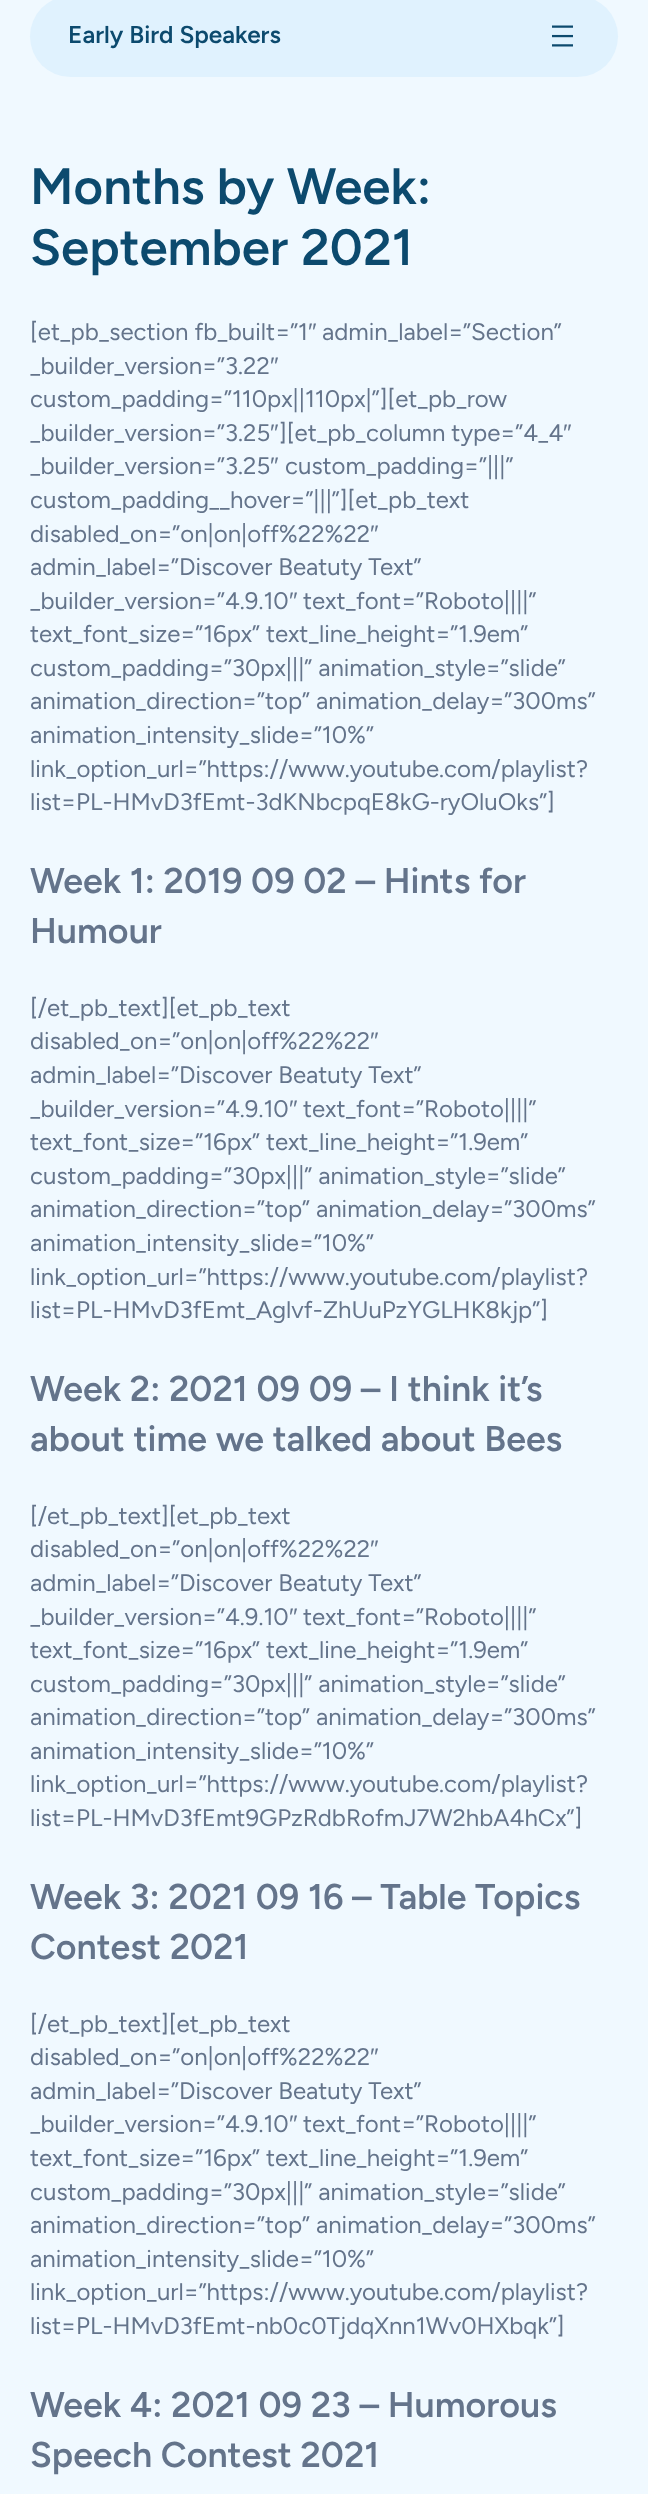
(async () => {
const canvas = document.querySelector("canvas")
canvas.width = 648
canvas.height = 2494
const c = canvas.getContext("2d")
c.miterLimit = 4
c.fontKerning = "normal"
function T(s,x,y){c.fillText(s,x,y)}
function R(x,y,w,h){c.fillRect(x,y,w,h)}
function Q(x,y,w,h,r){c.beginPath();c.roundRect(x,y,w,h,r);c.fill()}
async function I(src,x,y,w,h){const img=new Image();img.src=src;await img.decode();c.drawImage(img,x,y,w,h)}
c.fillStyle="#f0f9ff"
R(0,0,648,2494)
c.fillStyle="#e0f2fe"
Q(30,-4,588,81,40.5)
c.font="600 24.4px Figtree"
c.fillStyle="#0c4a6e"
T("Early Bird Speakers",68,43)
await I("1.png",552,25,21,22)
c.font="600 51px Figtree"
T("Months by Week:",30,204)
T("September 2021",30,265)
c.font="24px Figtree"
c.fillStyle="#64748b"
T("[et_pb_section fb_built=”1",30,340)
c.font="24px Liberation Sans"
T("″",308,340)
c.font="24px Figtree"
T("admin_label=”Section”",322,340)
T("_builder_version=”3.22",30,374)
c.font="24px Liberation Sans"
T("″",270,374)
c.font="24px Figtree"
T("custom_padding=”110px||110px|”][et_pb_row",30,407)
T("_builder_version=”3.25",30,441)
c.font="24px Liberation Sans"
T("″",270,441)
c.font="24px Figtree"
T("][et_pb_column type=”4_4",279,441)
c.font="24px Liberation Sans"
T("″",563,441)
c.font="24px Figtree"
T("_builder_version=”3.25",30,474)
c.font="24px Liberation Sans"
T("″",270,474)
c.font="24px Figtree"
T("custom_padding=”|||”",285,474)
T("custom_padding__hover=”|||”][et_pb_text",30,508)
T("disabled_on=”on|on|off%22%22",30,542)
c.font="24px Liberation Sans"
T("″",370,542)
c.font="24px Figtree"
T("admin_label=”Discover Beatuty Text”",30,575)
T("_builder_version=”4.9.10",30,609)
c.font="24px Liberation Sans"
T("″",289,609)
c.font="24px Figtree"
T("text_font=”Roboto||||”",303,609)
T("text_font_size=”16px” text_line_height=”1.9em”",30,642)
T("custom_padding=”30px|||” animation_style=”slide”",30,676)
T("animation_direction=”top” animation_delay=”300ms”",30,709)
T("animation_intensity_slide=”10%”",30,743)
T("link_option_url=”https://www.youtube.com/playlist?",30,777)
T("list=PL-HMvD3fEmt-3dKNbcpqE8kG-ryOluOks”]",30,810)
c.font="600 35.75px Figtree"
T("Week 1: 2019 09 02 – Hints for",30,893)
T("Humour",30,943)
c.font="24px Figtree"
T("[/et_pb_text][et_pb_text",30,1016)
T("disabled_on=”on|on|off%22%22",30,1049)
c.font="24px Liberation Sans"
T("″",370,1049)
c.font="24px Figtree"
T("admin_label=”Discover Beatuty Text”",30,1083)
T("_builder_version=”4.9.10",30,1117)
c.font="24px Liberation Sans"
T("″",289,1117)
c.font="24px Figtree"
T("text_font=”Roboto||||”",303,1117)
T("text_font_size=”16px” text_line_height=”1.9em”",30,1150)
T("custom_padding=”30px|||” animation_style=”slide”",30,1184)
T("animation_direction=”top” animation_delay=”300ms”",30,1217)
T("animation_intensity_slide=”10%”",30,1251)
T("link_option_url=”https://www.youtube.com/playlist?",30,1285)
T("list=PL-HMvD3fEmt_Aglvf-ZhUuPzYGLHK8kjp”]",30,1318)
c.font="600 35.75px Figtree"
T("Week 2: 2021 09 09 – I think it’s",30,1401)
T("about time we talked about Bees",30,1451)
c.font="24px Figtree"
T("[/et_pb_text][et_pb_text",30,1524)
T("disabled_on=”on|on|off%22%22",30,1557)
c.font="24px Liberation Sans"
T("″",370,1557)
c.font="24px Figtree"
T("admin_label=”Discover Beatuty Text”",30,1591)
T("_builder_version=”4.9.10",30,1625)
c.font="24px Liberation Sans"
T("″",289,1625)
c.font="24px Figtree"
T("text_font=”Roboto||||”",303,1625)
T("text_font_size=”16px” text_line_height=”1.9em”",30,1658)
T("custom_padding=”30px|||” animation_style=”slide”",30,1692)
T("animation_direction=”top” animation_delay=”300ms”",30,1725)
T("animation_intensity_slide=”10%”",30,1759)
T("link_option_url=”https://www.youtube.com/playlist?",30,1792)
T("list=PL-HMvD3fEmt9GPzRdbRofmJ7W2hbA4hCx”]",30,1826)
c.font="600 35.75px Figtree"
T("Week 3: 2021 09 16 – Table Topics",30,1909)
T("Contest 2021",30,1959)
c.font="24px Figtree"
T("[/et_pb_text][et_pb_text",30,2032)
T("disabled_on=”on|on|off%22%22",30,2065)
c.font="24px Liberation Sans"
T("″",370,2065)
c.font="24px Figtree"
T("admin_label=”Discover Beatuty Text”",30,2099)
T("_builder_version=”4.9.10",30,2132)
c.font="24px Liberation Sans"
T("″",289,2132)
c.font="24px Figtree"
T("text_font=”Roboto||||”",303,2132)
T("text_font_size=”16px” text_line_height=”1.9em”",30,2166)
T("custom_padding=”30px|||” animation_style=”slide”",30,2200)
T("animation_direction=”top” animation_delay=”300ms”",30,2233)
T("animation_intensity_slide=”10%”",30,2267)
T("link_option_url=”https://www.youtube.com/playlist?",30,2300)
T("list=PL-HMvD3fEmt-nb0c0TjdqXnn1Wv0HXbqk”]",30,2334)
c.font="600 35.75px Figtree"
T("Week 4: 2021 09 23 – Humorous",30,2417)
T("Speech Contest 2021",30,2467)
})()
